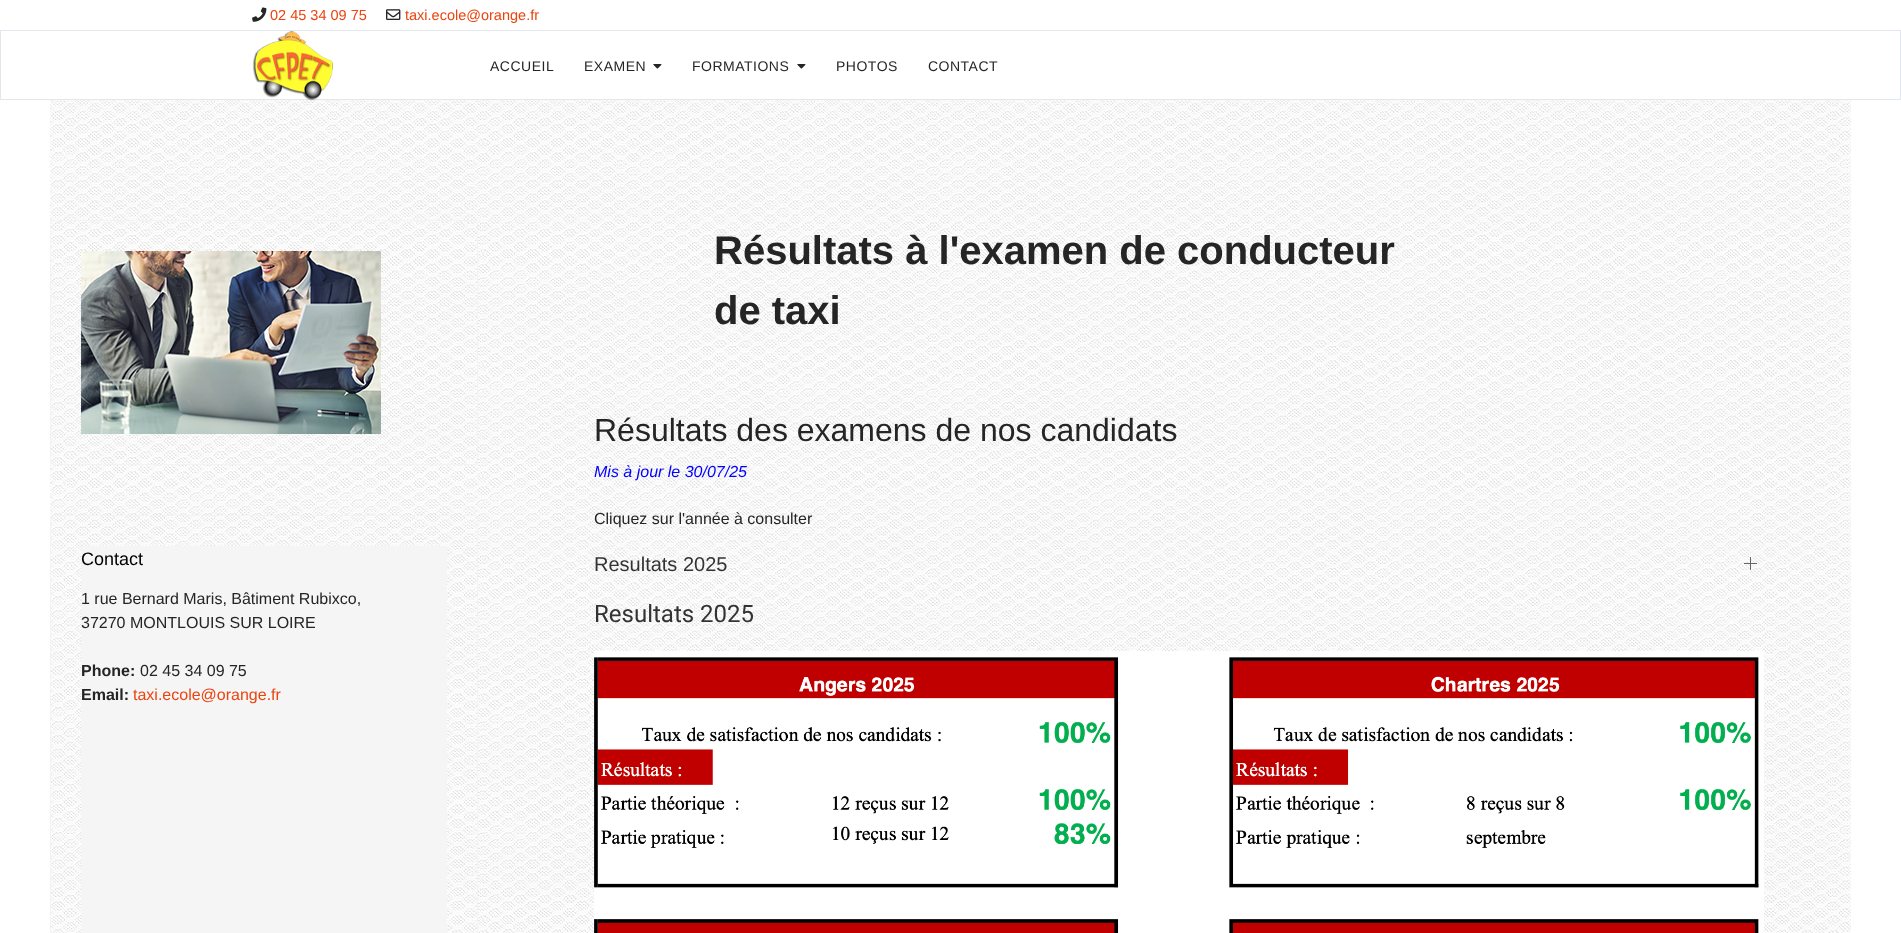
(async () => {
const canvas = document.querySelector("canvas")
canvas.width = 1901
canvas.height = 933
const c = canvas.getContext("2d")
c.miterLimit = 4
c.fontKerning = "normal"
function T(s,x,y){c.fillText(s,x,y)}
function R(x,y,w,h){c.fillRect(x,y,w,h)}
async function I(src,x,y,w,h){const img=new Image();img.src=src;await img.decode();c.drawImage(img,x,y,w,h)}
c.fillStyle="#fff"
R(0,0,1901,933)
await I("1.png",252,7,15,15)
c.font="14.5px Liberation Sans"
c.fillStyle="#ec430f"
T("02 45 34 09 75",270,20)
await I("2.png",386,9,15,11)
T("taxi.ecole@orange.fr",405,20)
c.strokeStyle="#e1e7ec"
c.strokeRect(.5,30.5,1900,69)
await I("5.png",50,100,1801,833)
await I("3.png",252,31,81,70)
c.letterSpacing="0.5px"
c.font="14px Liberation Sans"
c.fillStyle="#252525"
T("ACCUEIL",490,71)
T("EXAMEN",584,71)
await I("4.png",653,64,9,5)
T("FORMATIONS",692,71)
await I("4.png",797,64,9,5)
T("PHOTOS",836,71)
T("CONTACT",928,71)
c.beginPath()
c.roundRect(50.5,220.5,427,244,2.5)
c.strokeStyle="#f3f3f3"
c.stroke()
await I("6.png",81,251,300,183)
c.beginPath()
c.roundRect(50.5,515.5,427,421,2.5)
c.stroke()
c.fillStyle="#f5f5f5"
R(81,546,366,387)
c.letterSpacing="0px"
c.font="18px Liberation Sans"
c.fillStyle="#000"
T("Contact",81,565)
c.font="16px Liberation Sans"
c.fillStyle="#252525"
T("1 rue Bernard Maris, Bâtiment Rubixco,",81,604)
T("37270 MONTLOUIS SUR LOIRE",81,628)
c.font="bold 16px Liberation Sans"
T("Phone:",81,676)
c.font="16px Liberation Sans"
T("02 45 34 09 75",140,676)
c.font="bold 16px Liberation Sans"
T("Email:",81,700)
c.font="16px Liberation Sans"
c.fillStyle="#ec430f"
T("taxi.ecole@orange.fr",133,700)
c.font="bold 40px Liberation Sans"
c.fillStyle="#252525"
T("Résultats à l'examen de conducteur",714,264)
T("de taxi",714,324)
c.font="32px Liberation Sans"
T("Résultats des examens de nos candidats",594,441)
c.font="italic 16px Liberation Sans"
c.fillStyle="#00f"
T("Mis à jour le 30/07/25",594,477)
c.font="16px Liberation Sans"
c.fillStyle="#252525"
T("Cliquez sur l'année à consulter",594,524)
c.font="20px Liberation Sans"
c.fillStyle="#333"
T("Resultats 2025",594,571)
c.fillStyle="#666"
R(1744,563,13,1)
R(1750,557,1,13)
c.font="24px Roboto"
c.fillStyle="#333"
T("Resultats 2025",594,622)
await I("7.png",594,651,1170,282)
})()
